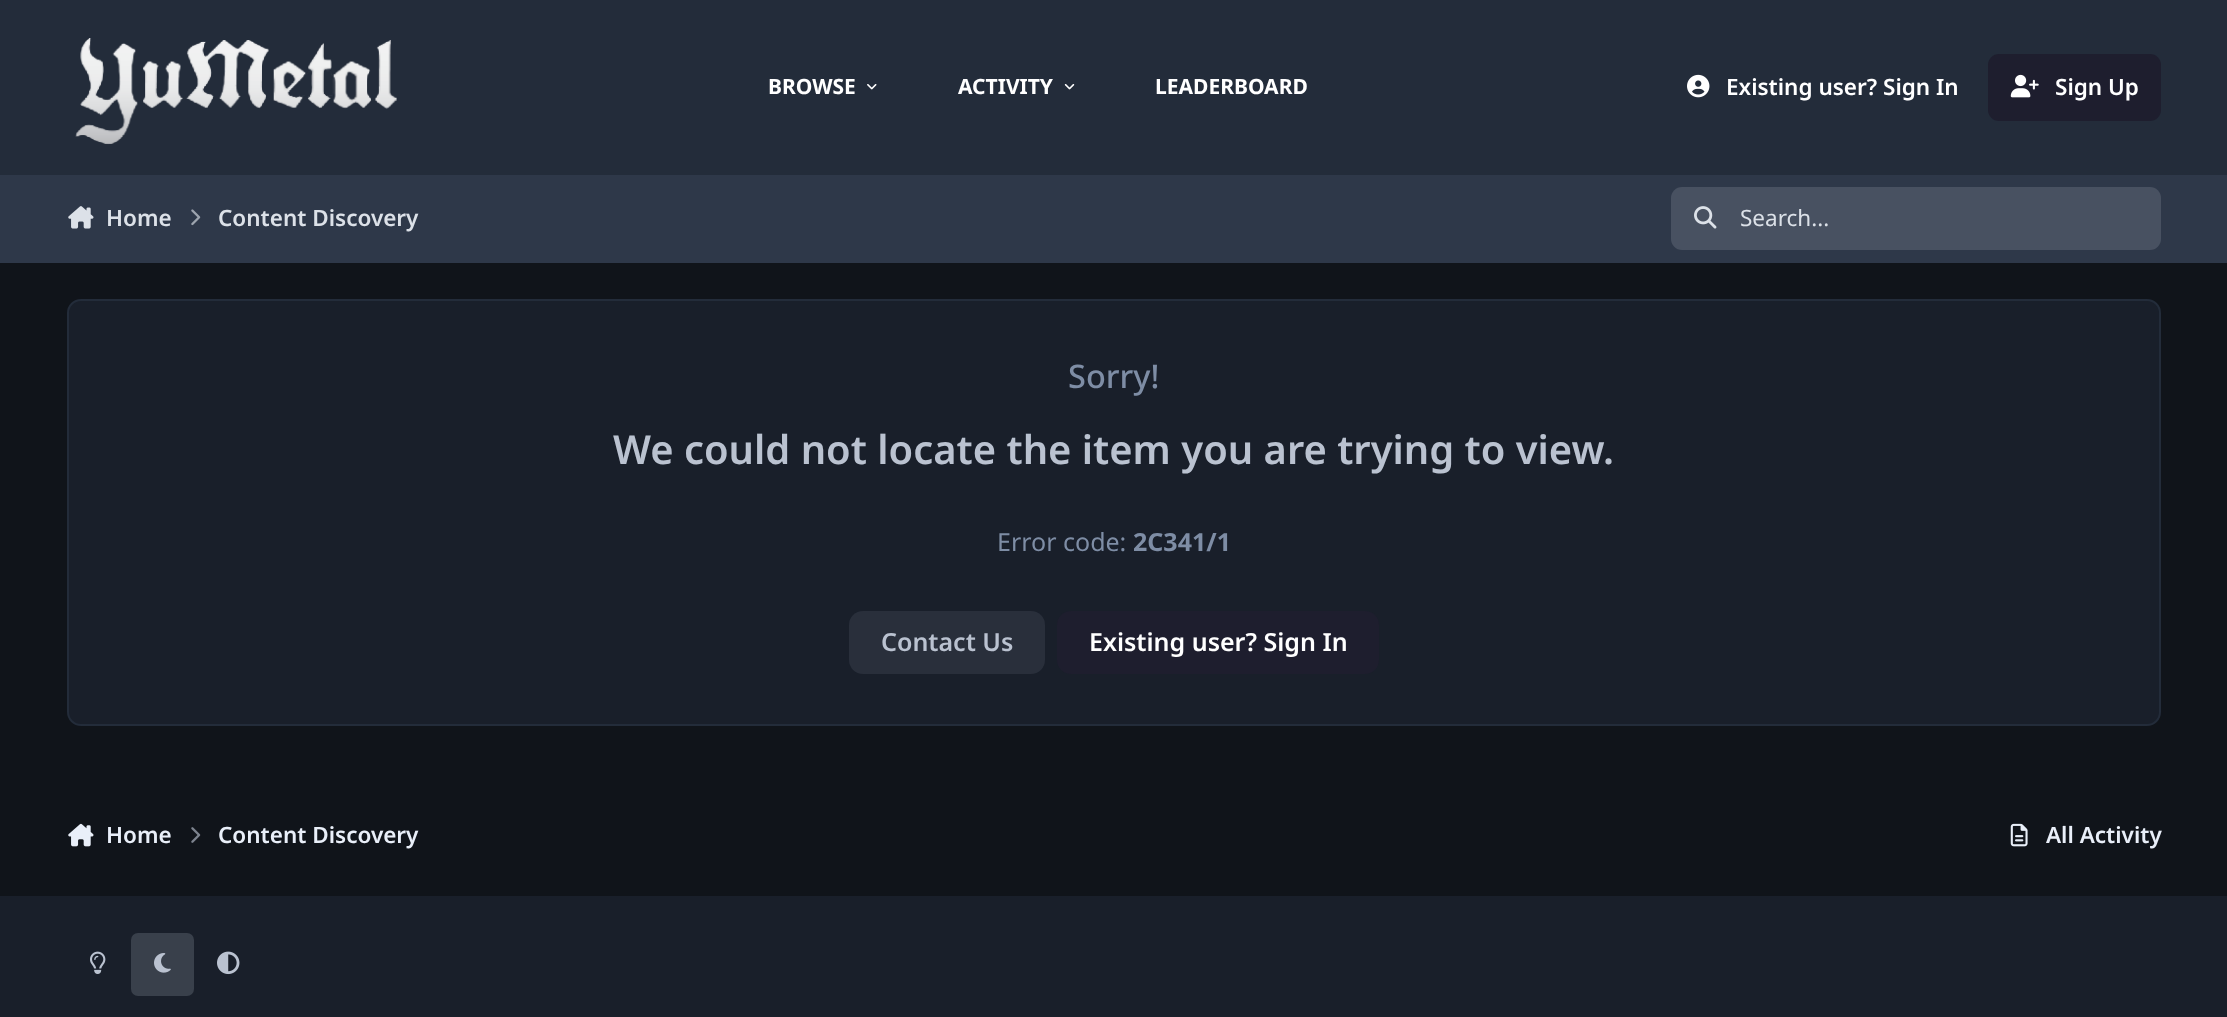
(async () => {
const canvas = document.querySelector("canvas")
canvas.width = 2227
canvas.height = 1017
const c = canvas.getContext("2d")
c.miterLimit = 4
c.fontKerning = "normal"
function T(s,x,y){c.fillText(s,x,y)}
function R(x,y,w,h){c.fillRect(x,y,w,h)}
function Q(x,y,w,h,r){c.beginPath();c.roundRect(x,y,w,h,r);c.fill()}
async function I(src,x,y,w,h){const img=new Image();img.src=src;await img.decode();c.drawImage(img,x,y,w,h)}
c.fillStyle="#10141a"
R(0,0,2227,1017)
c.fillStyle="#232c3a"
R(0,0,2227,175)
await I("1.png",75,38,322,107)
c.font="bold 21px Noto Sans"
c.fillStyle="#fff"
T("BROWSE",768,94)
await I("2.png",867,84,10,6)
T("ACTIVITY",958,94)
await I("3.png",1064,84,11,6)
T("LEADERBOARD",1155,94)
await I("4.png",1687,74,23,24)
c.font="600 22.5px Noto Sans"
T("Existing user? Sign In",1726,95)
c.fillStyle="#1e1e2e"
Q(1988,54,173,67,11)
await I("5.png",2010,74,29,24)
c.fillStyle="#fff"
T("Sign Up",2055,95)
c.fillStyle="#2e3849"
R(0,175,2227,88)
await I("6.png",68,206,26,23)
c.fillStyle="#dce1e8"
T("Home",106,226)
await I("7.png",191,209,10,17)
T("Content Discovery",218,226)
c.fillStyle="#485161"
Q(1671,187,490,63,11)
await I("8.png",1694,206,23,23)
c.font="22.5px Noto Sans"
c.fillStyle="#dce1e8"
T("Search...",1740,226)
c.fillStyle="#191f2a"
c.beginPath()
c.roundRect(68,300,2092,425,13)
c.fill()
c.strokeStyle="#232c3a"
c.lineWidth=2
c.stroke()
c.font="500 32.5px Noto Sans"
c.fillStyle="#7e8da5"
T("Sorry!",1068,388)
c.font="600 39.9px Noto Sans"
c.fillStyle="#bac2d0"
T("We could not locate the item you are trying to view.",613,464)
c.font="25px Noto Sans"
c.fillStyle="#7e8da5"
T("Error code:",997,551)
c.font="bold 25px Noto Sans"
T("2C341/1",1133,551)
c.fillStyle="#292f3b"
Q(849,611,196,63,14)
c.font="600 25px Noto Sans"
c.fillStyle="#bac2d0"
T("Contact Us",881,651)
c.fillStyle="#1e1e2e"
Q(1057,611,322,63,14)
c.fillStyle="#fff"
T("Existing user? Sign In",1089,651)
await I("9.png",68,823,26,24)
c.font="600 22.5px Noto Sans"
c.fillStyle="#e9eff9"
T("Home",106,843)
await I("10.png",191,827,10,16)
T("Content Discovery",218,843)
await I("11.png",2010,823,18,24)
T("All Activity",2046,843)
c.fillStyle="#191f2a"
R(0,896,2227,121)
await I("12.png",90,951,16,23)
c.fillStyle="#39404b"
Q(131,933,63,63,7)
await I("13.png",154,953,17,20)
await I("14.png",217,951,23,24)
})()
